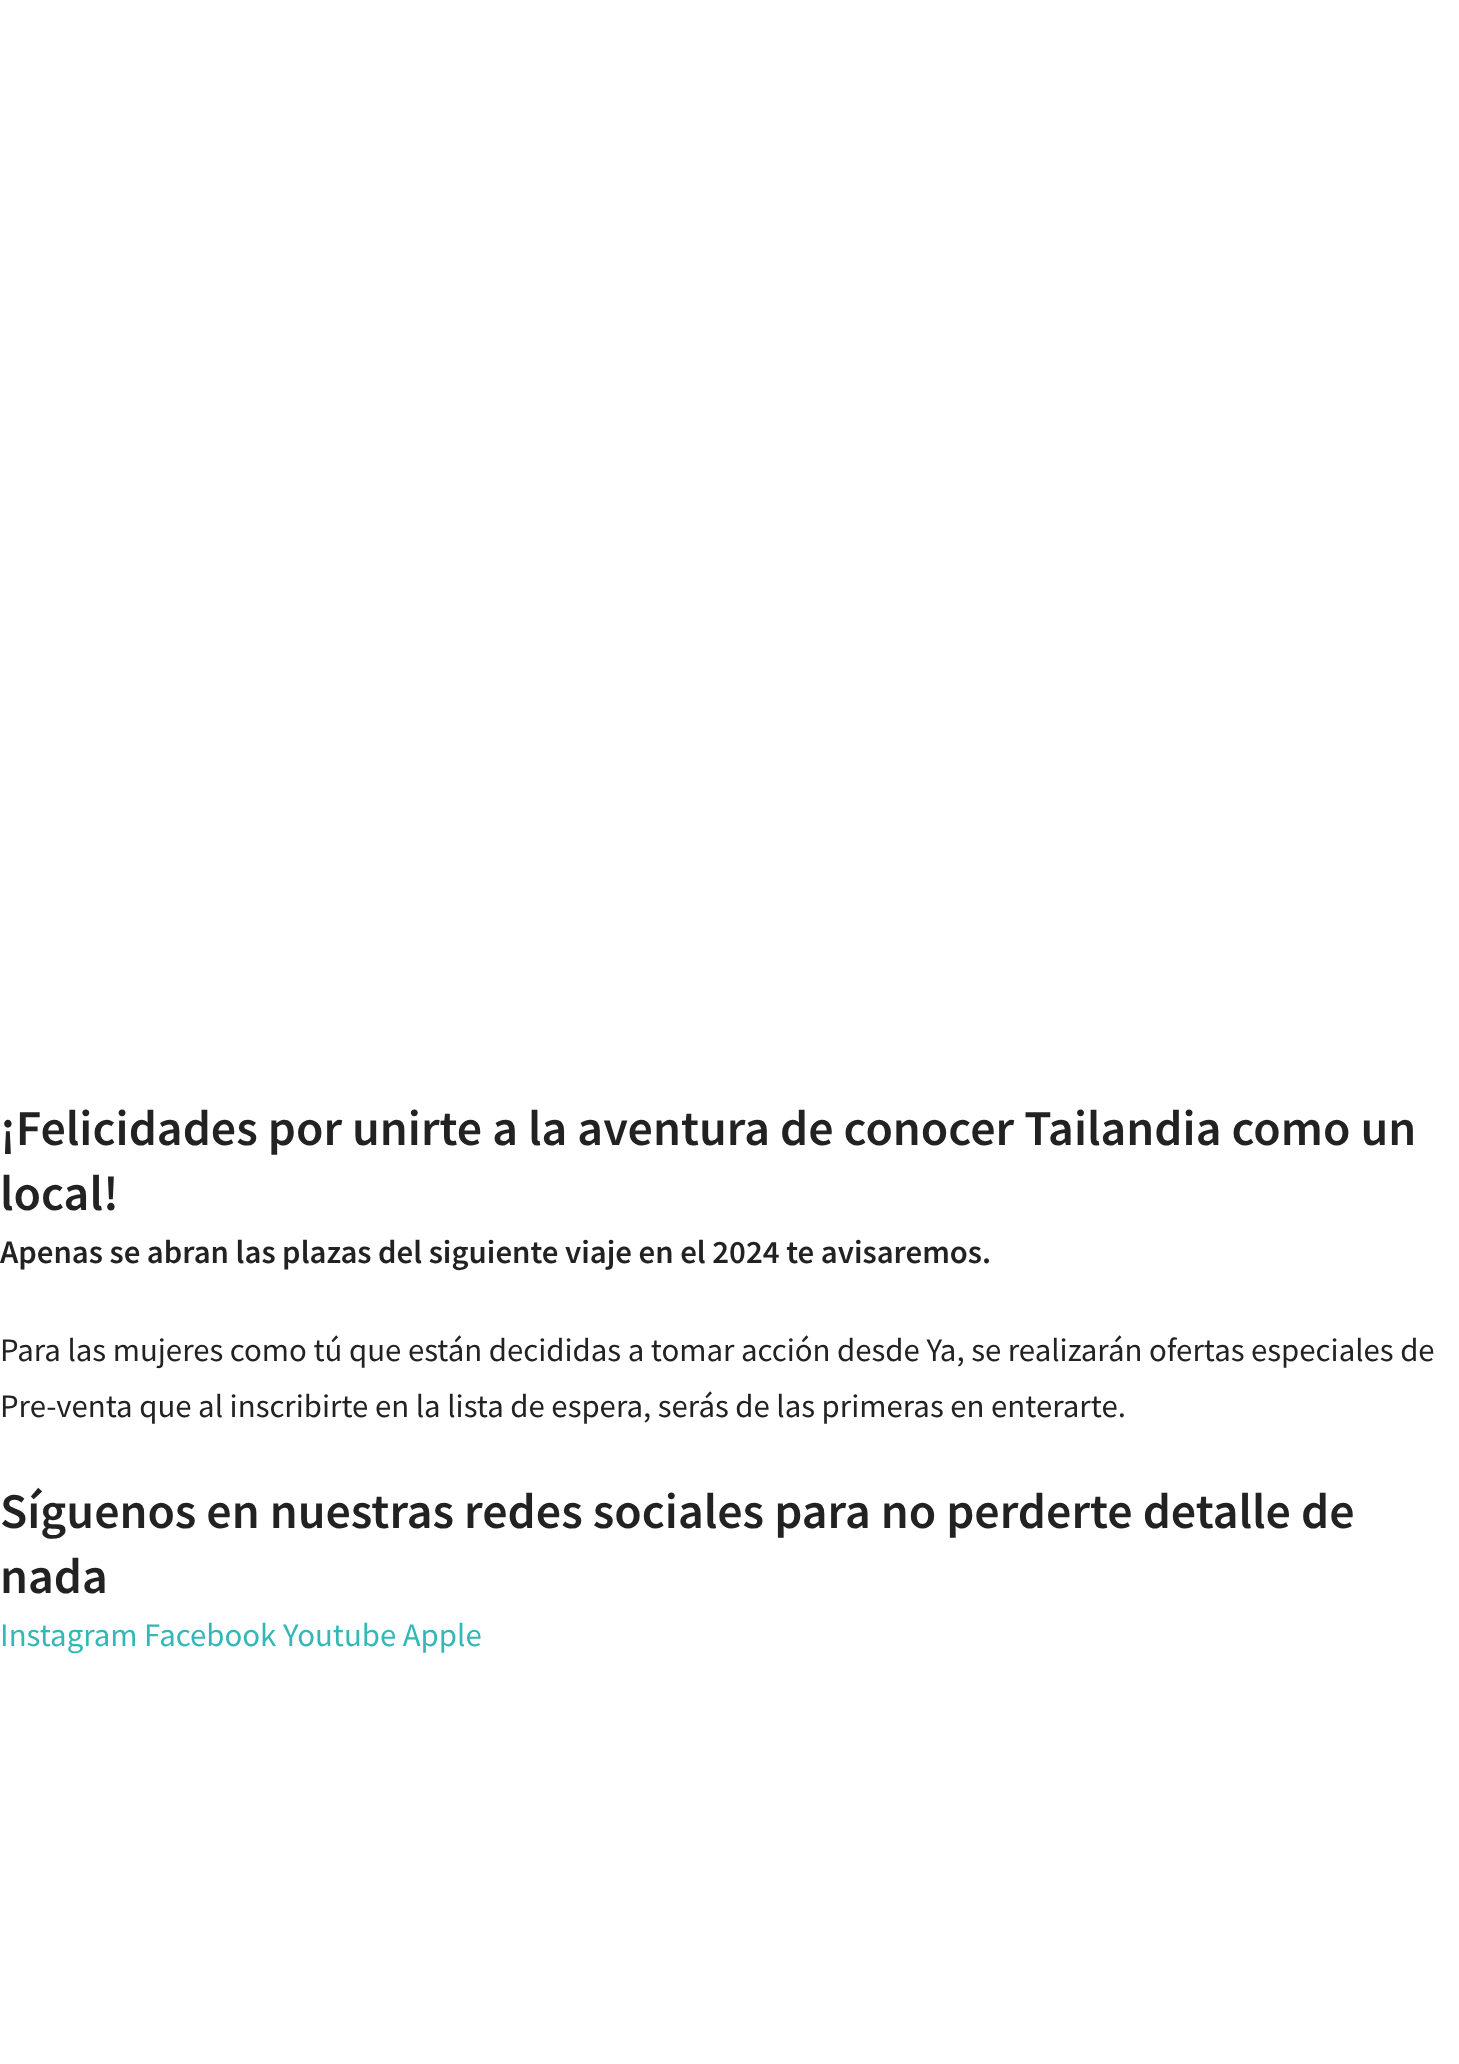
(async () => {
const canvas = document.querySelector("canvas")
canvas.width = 1459
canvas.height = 2064
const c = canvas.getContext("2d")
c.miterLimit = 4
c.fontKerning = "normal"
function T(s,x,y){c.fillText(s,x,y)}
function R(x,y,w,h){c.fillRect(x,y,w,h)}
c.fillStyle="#fff"
R(0,0,1459,2064)
c.font="600 50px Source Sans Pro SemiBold"
c.fillStyle="#222"
T("¡Felicidades por unirte a la aventura de conocer Tailandia como un",0,1145)
T("local!",0,1210)
c.font="600 32.85px Source Sans Pro SemiBold"
T("Apenas se abran las plazas del siguiente viaje en el 2024 te avisaremos.",0,1263)
c.font="32.85px Source Sans Pro"
T("Para las mujeres como tú que están decididas a tomar acción desde Ya, se realizarán ofertas especiales de",0,1361)
T("Pre-venta que al inscribirte en la lista de espera, serás de las primeras en enterarte.",0,1417)
c.font="600 50px Source Sans Pro SemiBold"
T("Síguenos en nuestras redes sociales para no perderte detalle de",0,1528)
T("nada",0,1593)
c.font="32.85px Source Sans Pro"
c.fillStyle="#33b7b7"
T("Instagram Facebook Youtube Apple",0,1646)
})()
